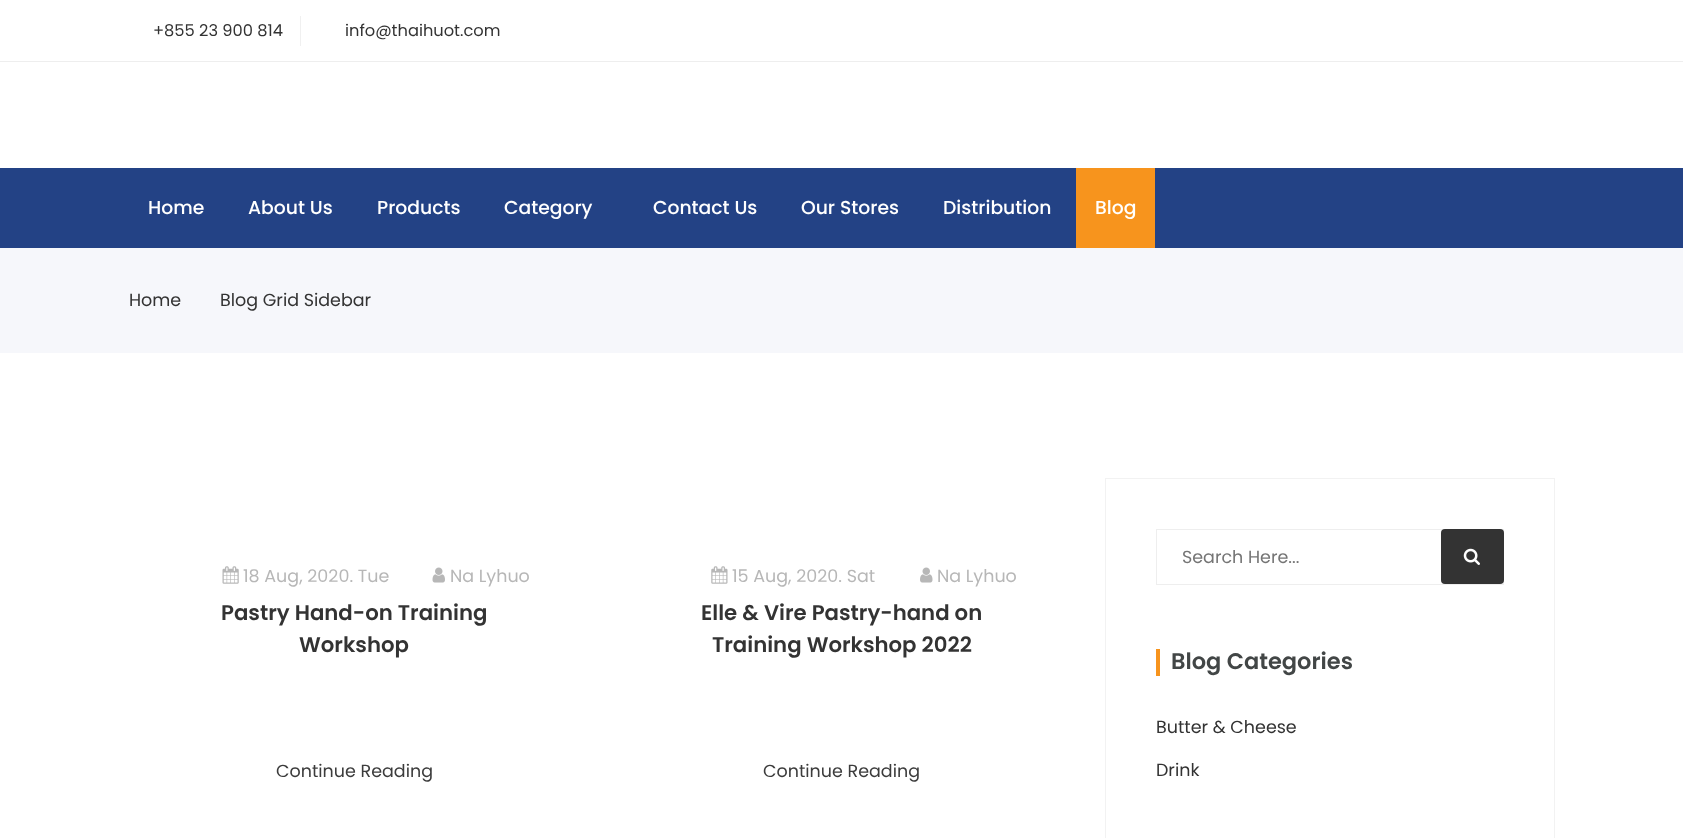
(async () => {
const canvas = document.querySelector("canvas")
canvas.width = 1683
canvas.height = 838
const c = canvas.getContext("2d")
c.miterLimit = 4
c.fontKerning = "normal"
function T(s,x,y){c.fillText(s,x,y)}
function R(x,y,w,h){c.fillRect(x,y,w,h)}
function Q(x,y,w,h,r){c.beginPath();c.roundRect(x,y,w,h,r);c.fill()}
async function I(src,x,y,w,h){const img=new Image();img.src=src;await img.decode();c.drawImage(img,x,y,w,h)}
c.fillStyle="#fff"
R(0,0,1683,838)
c.fillStyle="#f0f0f0"
R(300,16,1,30)
c.font="16.25px Poppins"
c.fillStyle="#333"
T("+855 23 900 814",153,36)
T("info@thaihuot.com",345,36)
c.fillStyle="#eee"
R(0,61,1683,1)
c.fillStyle="#234285"
R(0,168,1683,80)
c.font="500 18.75px Poppins"
c.fillStyle="#fff"
T("Home",148,214)
T("About Us",248,214)
T("Products",377,214)
T("Category",504,214)
T("Contact Us",653,214)
T("Our Stores",801,214)
T("Distribution",943,214)
c.fillStyle="#f7941d"
R(1076,168,79,80)
c.fillStyle="#fff"
T("Blog",1095,214)
c.fillStyle="#f6f7fb"
R(0,248,1683,105)
c.font="17.5px Poppins"
c.fillStyle="#333"
T("Home",129,306)
T("Blog Grid Sidebar",220,306)
await I("1.png",222,566,17,18)
c.fillStyle="#b7b7b7"
T("18 Aug, 2020. Tue",243,582)
await I("2.png",432,567,13,16)
T("Na Lyhuo",450,582)
c.font="600 21.25px Poppins"
c.fillStyle="#333"
T("Pastry Hand-on Training",221,620)
T("Workshop",299,652)
c.font="17.5px Poppins"
c.fillStyle="#3c3c3c"
T("Continue Reading",276,777)
await I("3.png",711,566,17,18)
c.fillStyle="#b7b7b7"
T("15 Aug, 2020. Sat",732,582)
await I("4.png",920,567,13,16)
T("Na Lyhuo",937,582)
c.font="600 21.25px Poppins"
c.fillStyle="#333"
T("Elle & Vire Pastry-hand on",701,620)
T("Training Workshop 2022",712,652)
c.font="17.5px Poppins"
c.fillStyle="#3c3c3c"
T("Continue Reading",763,777)
c.strokeStyle="#f2f2f2"
c.strokeRect(1105.5,478.5,449,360)
c.strokeStyle="#eee"
c.strokeRect(1156.5,529.5,347,55)
c.fillStyle="#757575"
T("Search Here...",1182,563)
c.fillStyle="#333"
Q(1441,529,63,55,4)
await I("5.png",1463,548,17,17)
c.fillStyle="#f7941d"
R(1156,649,4,27)
c.font="600 22.5px Poppins"
c.fillStyle="#424646"
T("Blog Categories",1171,669)
c.font="17.5px Poppins"
c.fillStyle="#333"
T("Butter & Cheese",1156,733)
T("Drink",1156,776)
})()
